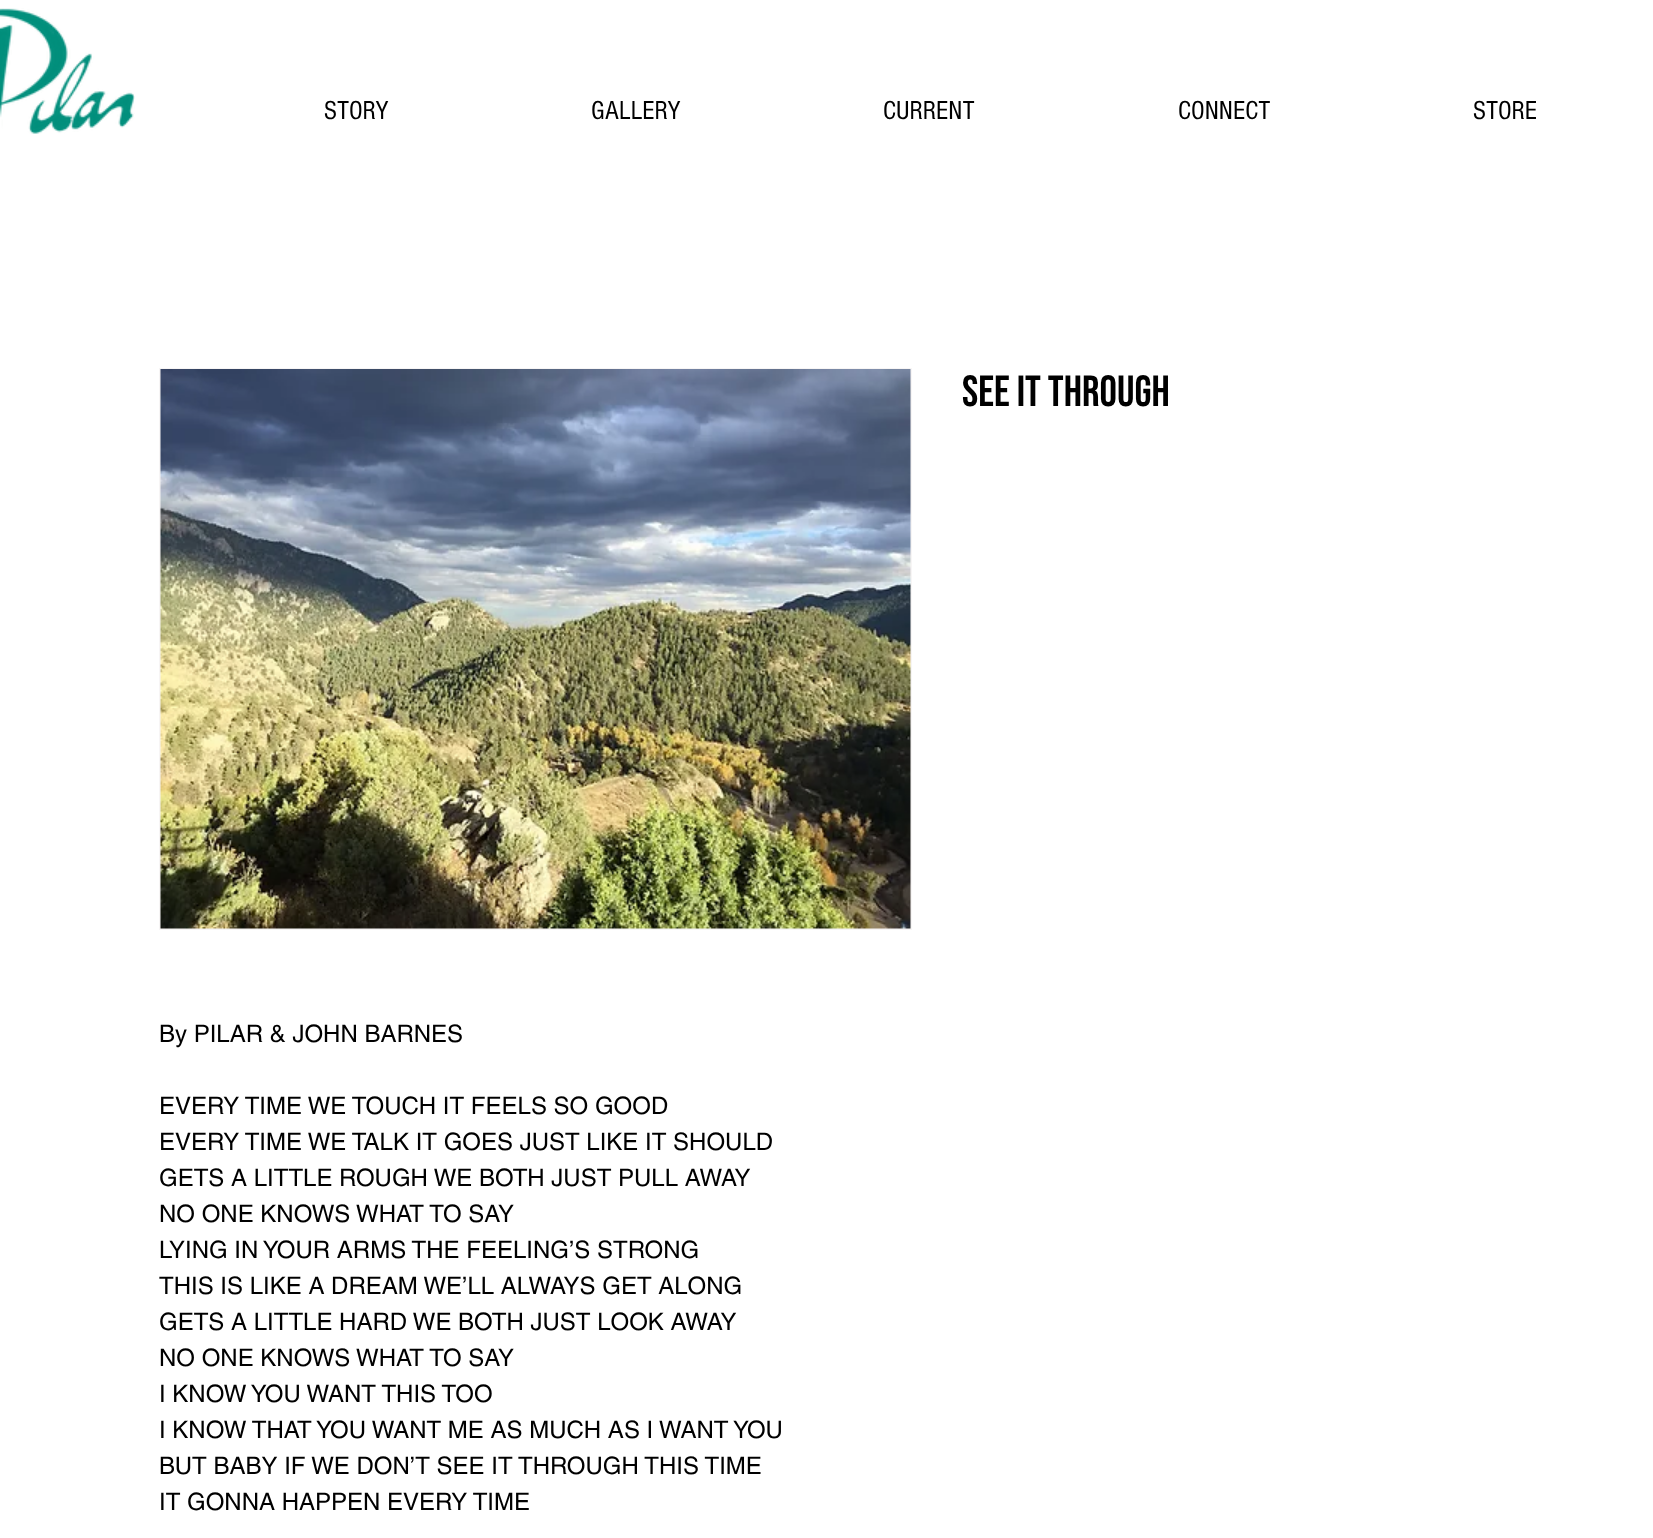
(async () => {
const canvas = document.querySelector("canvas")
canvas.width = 1653
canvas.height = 1538
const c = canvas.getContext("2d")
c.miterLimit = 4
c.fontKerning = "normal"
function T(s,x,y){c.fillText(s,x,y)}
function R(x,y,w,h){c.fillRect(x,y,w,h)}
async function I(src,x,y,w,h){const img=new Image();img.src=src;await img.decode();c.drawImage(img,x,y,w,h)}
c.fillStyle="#fff"
R(0,0,1653,1538)
await I("1.png",0,8,135,126)
c.font="27px 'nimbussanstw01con'"
c.fillStyle="#000"
T("STORY",324,119)
T("GALLERY",591,119)
T("CURRENT",883,119)
T("CONNECT",1178,119)
T("STORE",1473,119)
c.font="43.5px Bebas Neue"
T("SEE IT THROUGH",962,406)
c.strokeStyle="#f7f5f5"
c.lineWidth=2
c.strokeRect(160,369,751,560)
await I("2.png",160,369,751,560)
c.font="24px helvetica"
T("By PILAR & JOHN BARNES",159,1042)
T("EVERY TIME WE TOUCH IT FEELS SO GOOD",159,1114)
T("EVERY TIME WE TALK IT GOES JUST LIKE IT SHOULD",159,1150)
T("GETS A LITTLE ROUGH WE BOTH JUST PULL AWAY",159,1186)
T("NO ONE KNOWS WHAT TO SAY",159,1222)
T("LYING IN YOUR ARMS THE FEELING’S STRONG",159,1258)
T("THIS IS LIKE A DREAM WE’LL ALWAYS GET ALONG",159,1294)
T("GETS A LITTLE HARD WE BOTH JUST LOOK AWAY",159,1330)
T("NO ONE KNOWS WHAT TO SAY",159,1366)
T("I KNOW YOU WANT THIS TOO",159,1402)
T("I KNOW THAT YOU WANT ME AS MUCH AS I WANT YOU",159,1438)
T("BUT BABY IF WE DON’T SEE IT THROUGH THIS TIME",159,1474)
T("IT GONNA HAPPEN EVERY TIME",159,1510)
})()
